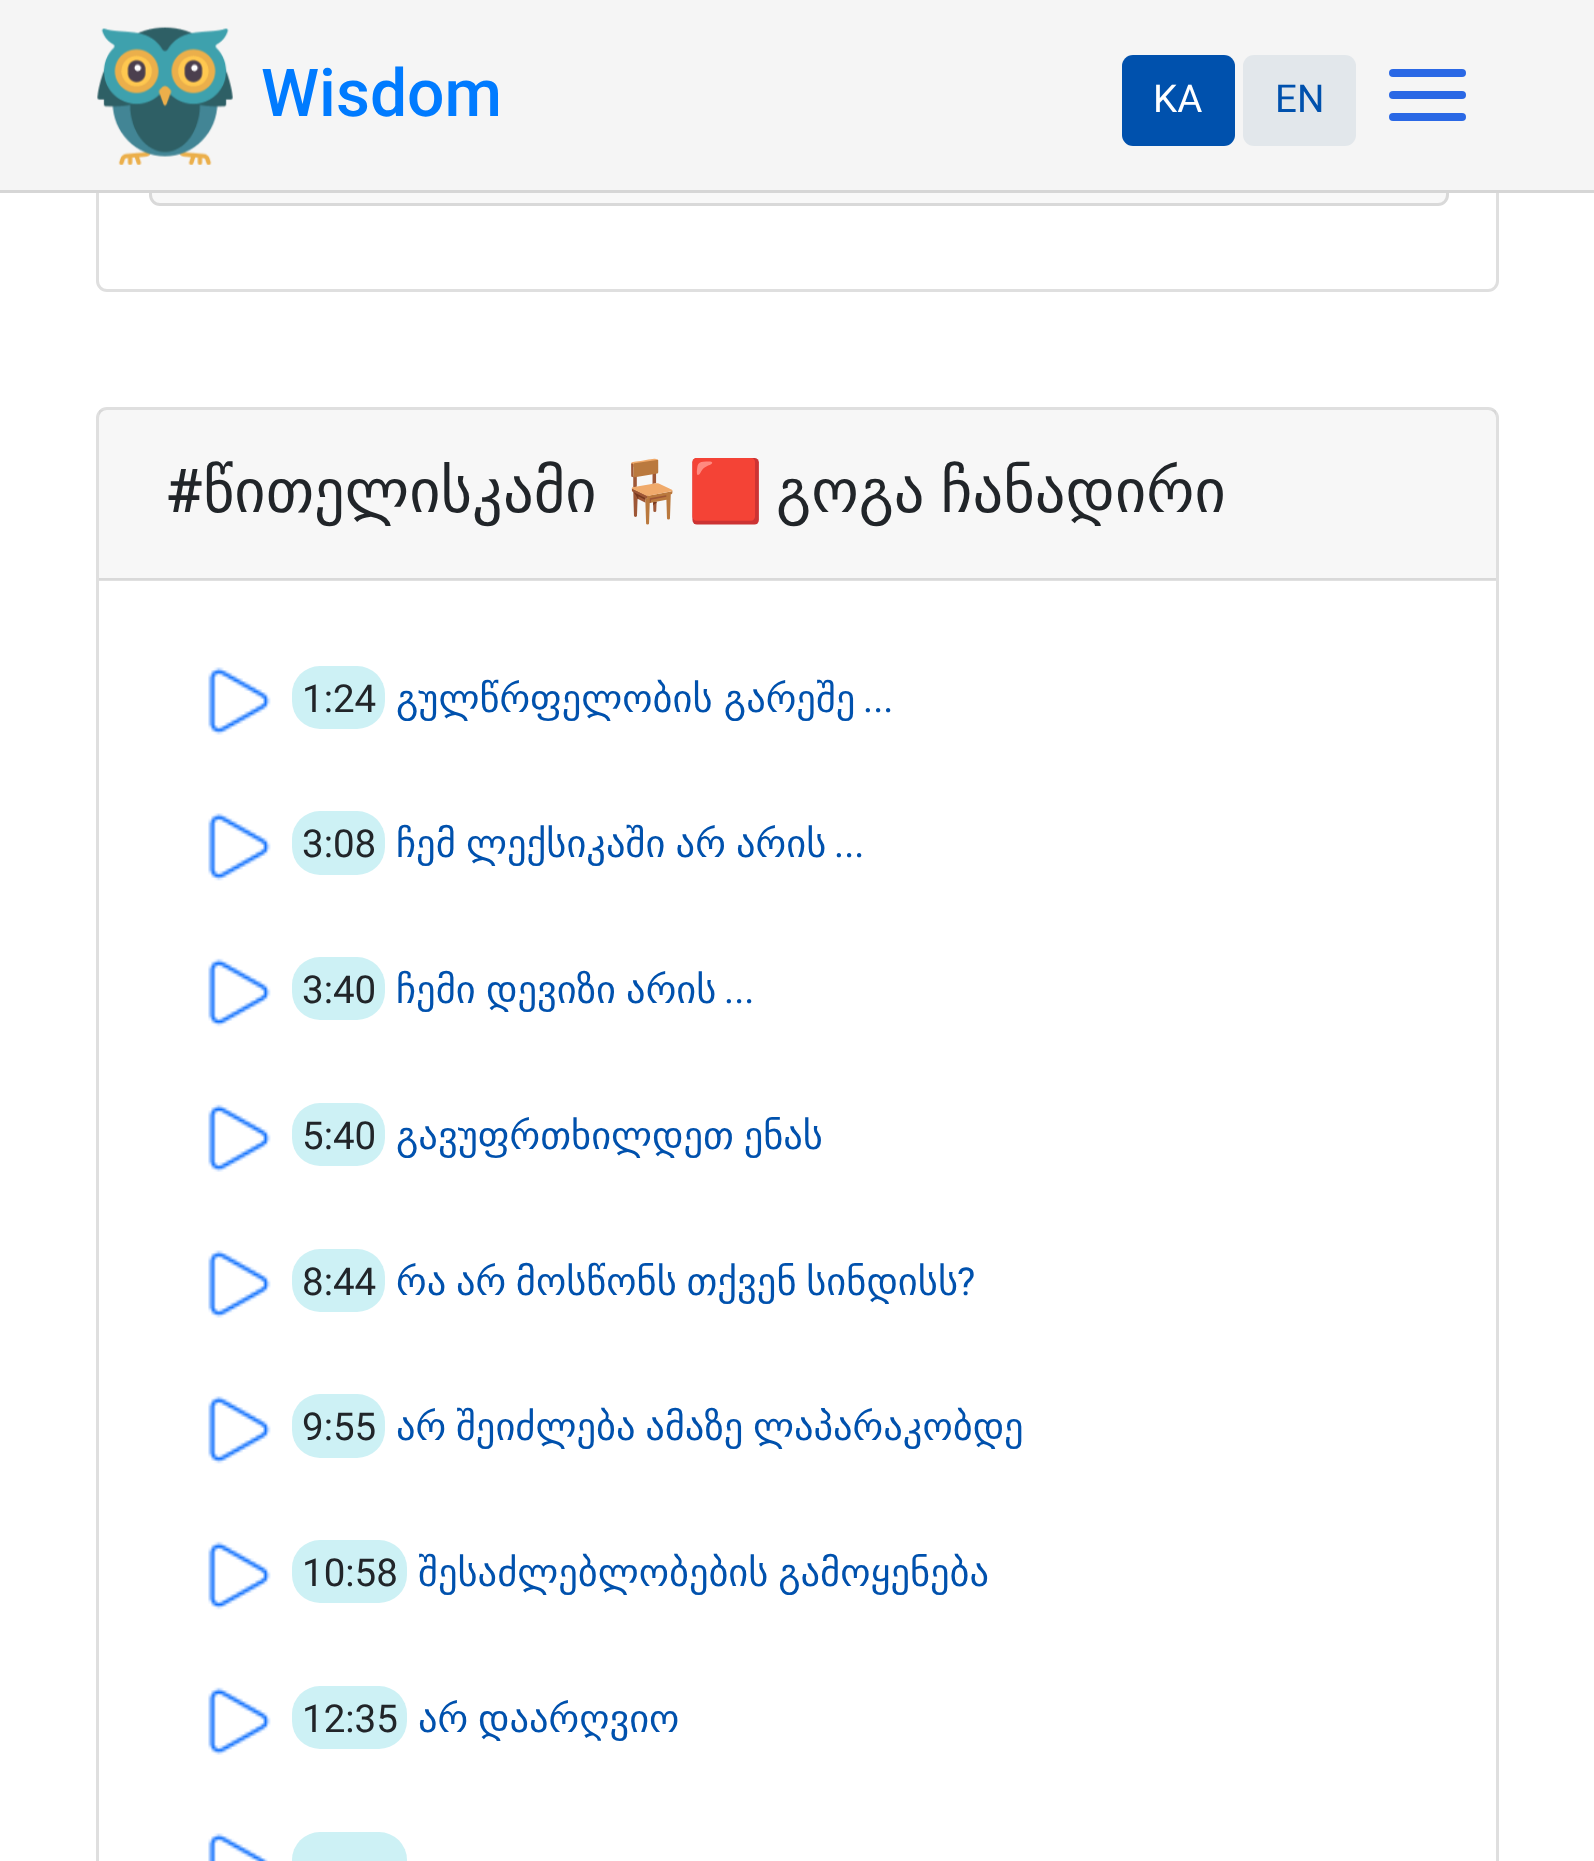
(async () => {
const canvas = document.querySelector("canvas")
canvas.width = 1594
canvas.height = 1861
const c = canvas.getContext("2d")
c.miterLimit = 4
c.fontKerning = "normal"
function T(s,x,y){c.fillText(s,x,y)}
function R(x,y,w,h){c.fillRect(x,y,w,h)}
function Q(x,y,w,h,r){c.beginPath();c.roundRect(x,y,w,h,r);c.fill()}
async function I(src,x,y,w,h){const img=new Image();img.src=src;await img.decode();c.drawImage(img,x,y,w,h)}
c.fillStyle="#fff"
R(0,0,1594,1861)
c.beginPath()
c.roundRect(97.5,-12.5,1400,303,9.5)
c.strokeStyle="#dfdfdf"
c.lineWidth=3
c.stroke()
c.fillStyle="#f8f8f8"
c.beginPath()
c.roundRect(150.5,106.5,1297,98,9.5)
c.fill()
c.strokeStyle="#d9d9d9"
c.stroke()
c.fillStyle="#f5f5f5"
R(0,0,1594,190)
c.fillStyle="#d6d6d6"
R(0,190,1594,3)
await I("1.png",97,26,136,139)
c.font="500 66px Roboto"
c.fillStyle="#007bff"
T("Wisdom",261,116)
c.fillStyle="#0051ad"
Q(1122,55,113,91,11)
c.font="38.5px Roboto"
c.fillStyle="#fff"
T("KA",1153,112)
c.fillStyle="#e2e7eb"
Q(1243,55,113,91,11)
c.fillStyle="#0051ad"
T("EN",1275,112)
c.fillStyle="#2a68e5"
Q(1389,91,77,8,4)
Q(1389,69,77,8,4)
Q(1389,113,77,8,4)
c.beginPath()
c.roundRect(97.5,408.5,1400,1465,9.5)
c.strokeStyle="#dfdfdf"
c.stroke()
c.fillStyle="#00000008"
R(99,410,1397,170)
c.fillStyle="#0000001f"
R(99,578,1397,3)
c.font="500 60.5px Roboto"
c.fillStyle="#212529"
T("#",166,512)
c.font="60.5px DejaVu Sans"
T("წითელისკამი",203,512)
c.font="60.5px Noto Color Emoji"
T("🪑🟥",613,512)
c.wordSpacing="-3px"
c.font="60.5px DejaVu Sans"
T("გოგა ჩანადირი",776,512)
await I("2.png",208,667,63,68)
c.fillStyle="#cdf1f5"
Q(292,666,93,63,28)
c.wordSpacing="0px"
c.font="38.5px Roboto"
c.fillStyle="#212529"
T("1:24",302,712)
c.wordSpacing="-1px"
c.font="38.5px DejaVu Sans"
c.fillStyle="#0051ad"
T("გულწრფელობის გარეშე",396,712)
c.wordSpacing="0px"
c.font="38.5px Roboto"
T("...",863,712)
await I("3.png",208,813,63,68)
c.fillStyle="#cdf1f5"
Q(292,811,93,64,28)
c.fillStyle="#212529"
T("3:08",302,857)
c.wordSpacing="-2px"
c.font="38.5px DejaVu Sans"
c.fillStyle="#0051ad"
T("ჩემ ლექსიკაში არ არის",396,857)
c.wordSpacing="0px"
c.font="38.5px Roboto"
T("...",834,857)
await I("4.png",208,958,63,69)
c.fillStyle="#cdf1f5"
Q(292,957,93,63,28)
c.fillStyle="#212529"
T("3:40",302,1003)
c.wordSpacing="-2px"
c.font="38.5px DejaVu Sans"
c.fillStyle="#0051ad"
T("ჩემი დევიზი არის",396,1003)
c.wordSpacing="0px"
c.font="38.5px Roboto"
T("...",724,1003)
await I("5.png",208,1104,63,68)
c.fillStyle="#cdf1f5"
Q(292,1103,93,63,28)
c.fillStyle="#212529"
T("5:40",302,1149)
c.wordSpacing="-2.5px"
c.font="38.5px DejaVu Sans"
c.fillStyle="#0051ad"
T("გავუფრთხილდეთ ენას",396,1149)
await I("2.png",208,1250,63,68)
c.fillStyle="#cdf1f5"
Q(292,1249,93,63,28)
c.wordSpacing="0px"
c.font="38.5px Roboto"
c.fillStyle="#212529"
T("8:44",302,1295)
c.wordSpacing="-2.5px"
c.font="38.5px DejaVu Sans"
c.fillStyle="#0051ad"
T("რა არ მოსწონს თქვენ სინდისს",396,1295)
c.wordSpacing="0px"
c.font="38.5px Roboto"
T("?",957,1295)
await I("3.png",208,1396,63,68)
c.fillStyle="#cdf1f5"
Q(292,1394,93,64,28)
c.fillStyle="#212529"
T("9:55",302,1440)
c.wordSpacing="-2.5px"
c.font="38.5px DejaVu Sans"
c.fillStyle="#0051ad"
T("არ შეიძლება ამაზე ლაპარაკობდე",396,1440)
await I("4.png",208,1541,63,69)
c.fillStyle="#cdf1f5"
Q(292,1540,115,63,28)
c.wordSpacing="0px"
c.font="38.5px Roboto"
c.fillStyle="#212529"
T("10:58",302,1586)
c.wordSpacing="-2.5px"
c.font="38.5px DejaVu Sans"
c.fillStyle="#0051ad"
T("შესაძლებლობების გამოყენება",418,1586)
await I("5.png",208,1687,63,68)
c.fillStyle="#cdf1f5"
Q(292,1686,115,63,28)
c.wordSpacing="0px"
c.font="38.5px Roboto"
c.fillStyle="#212529"
T("12:35",302,1732)
c.wordSpacing="-2.5px"
c.font="38.5px DejaVu Sans"
c.fillStyle="#0051ad"
T("არ დაარღვიო",418,1732)
await I("6.png",208,1833,60,28)
c.fillStyle="#cdf1f5"
Q(292,1832,115,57,28)
})()
